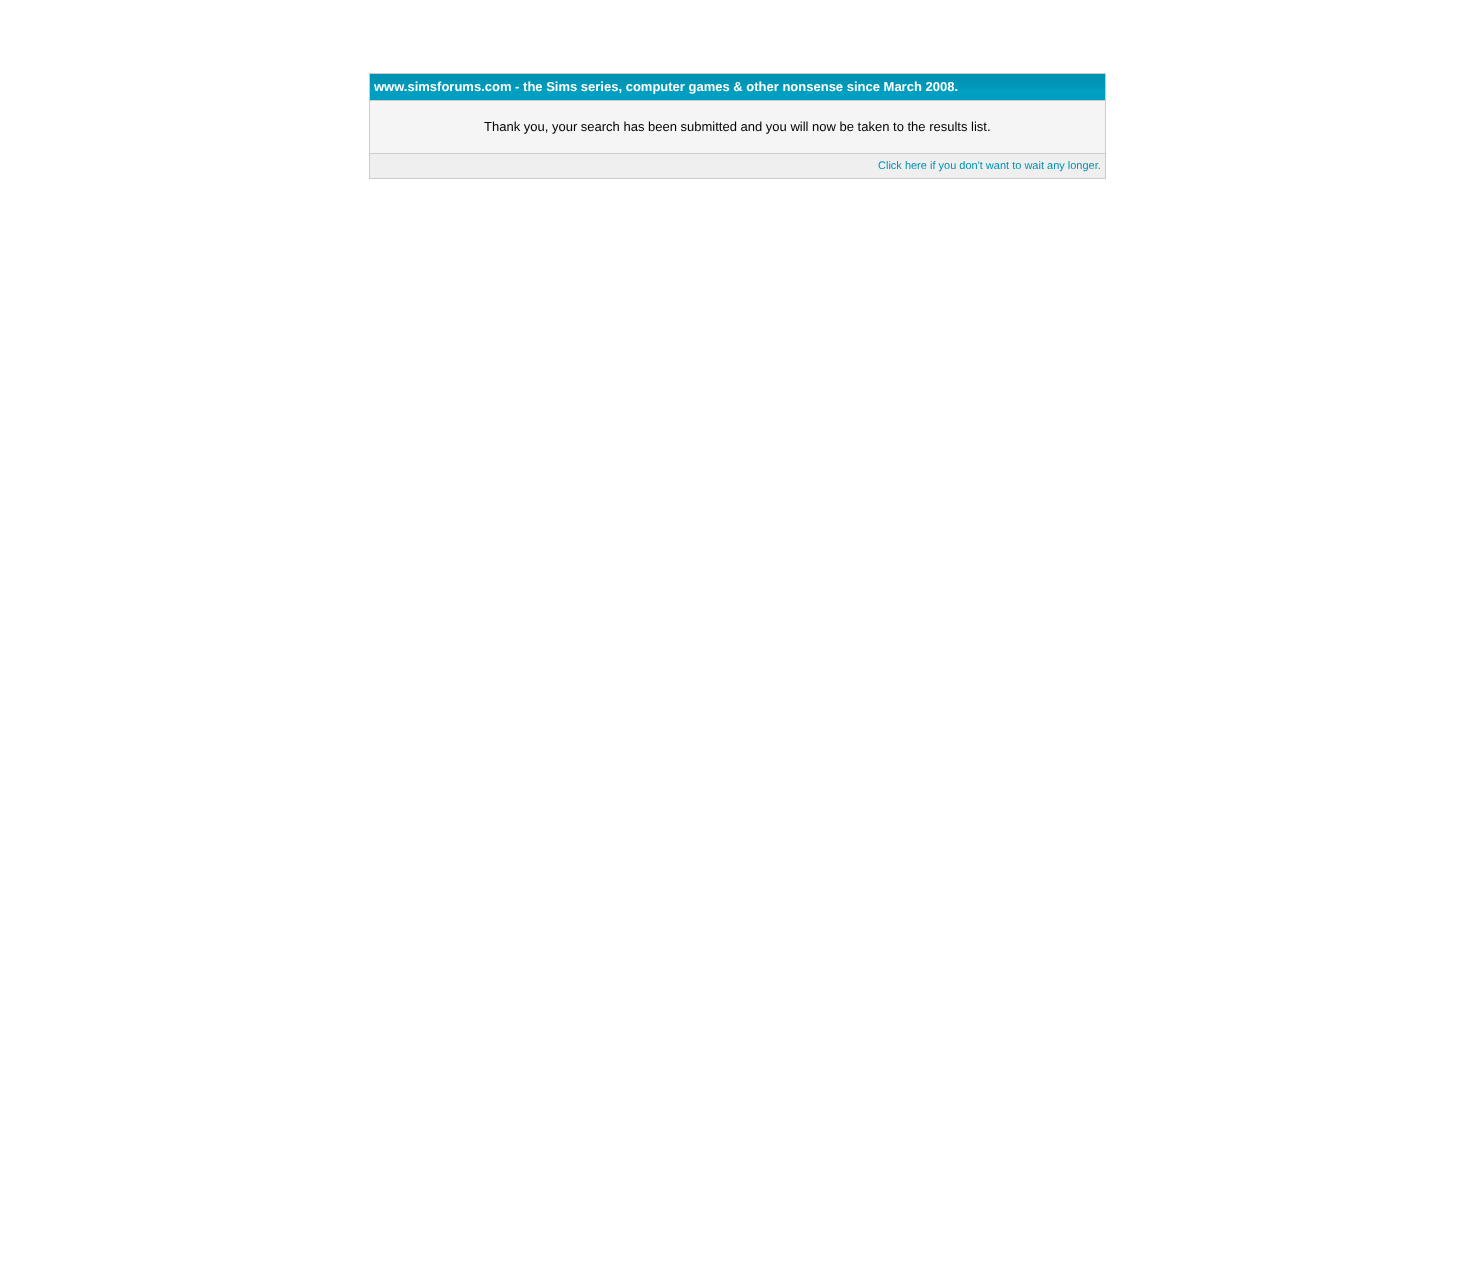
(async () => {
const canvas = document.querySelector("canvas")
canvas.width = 1474
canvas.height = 1273
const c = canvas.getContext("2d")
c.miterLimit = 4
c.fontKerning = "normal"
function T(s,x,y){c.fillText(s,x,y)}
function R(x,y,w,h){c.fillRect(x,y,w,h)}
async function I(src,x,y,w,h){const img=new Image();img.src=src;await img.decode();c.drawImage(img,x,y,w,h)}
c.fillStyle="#fff"
R(0,0,1474,1273)
c.fillStyle="#ccc"
R(369,73,737,106)
c.fillStyle="#009ec0"
R(370,89,735,11)
await I("1.png",370,74,735,15)
c.font="bold 13px Liberation Sans"
c.fillStyle="#fff"
T("www.simsforums.com - the Sims series, computer games & other nonsense since March 2008.",374,91)
c.fillStyle="#f5f5f5"
R(370,101,735,52)
c.font="13px Liberation Sans"
c.fillStyle="#000"
T("Thank you, your search has been submitted and you will now be taken to the results list.",484,131)
c.fillStyle="#efefef"
R(370,154,735,24)
c.font="11px Liberation Sans"
c.fillStyle="#0092b2"
T("Click here if you don't want to wait any longer.",878,169)
})()
